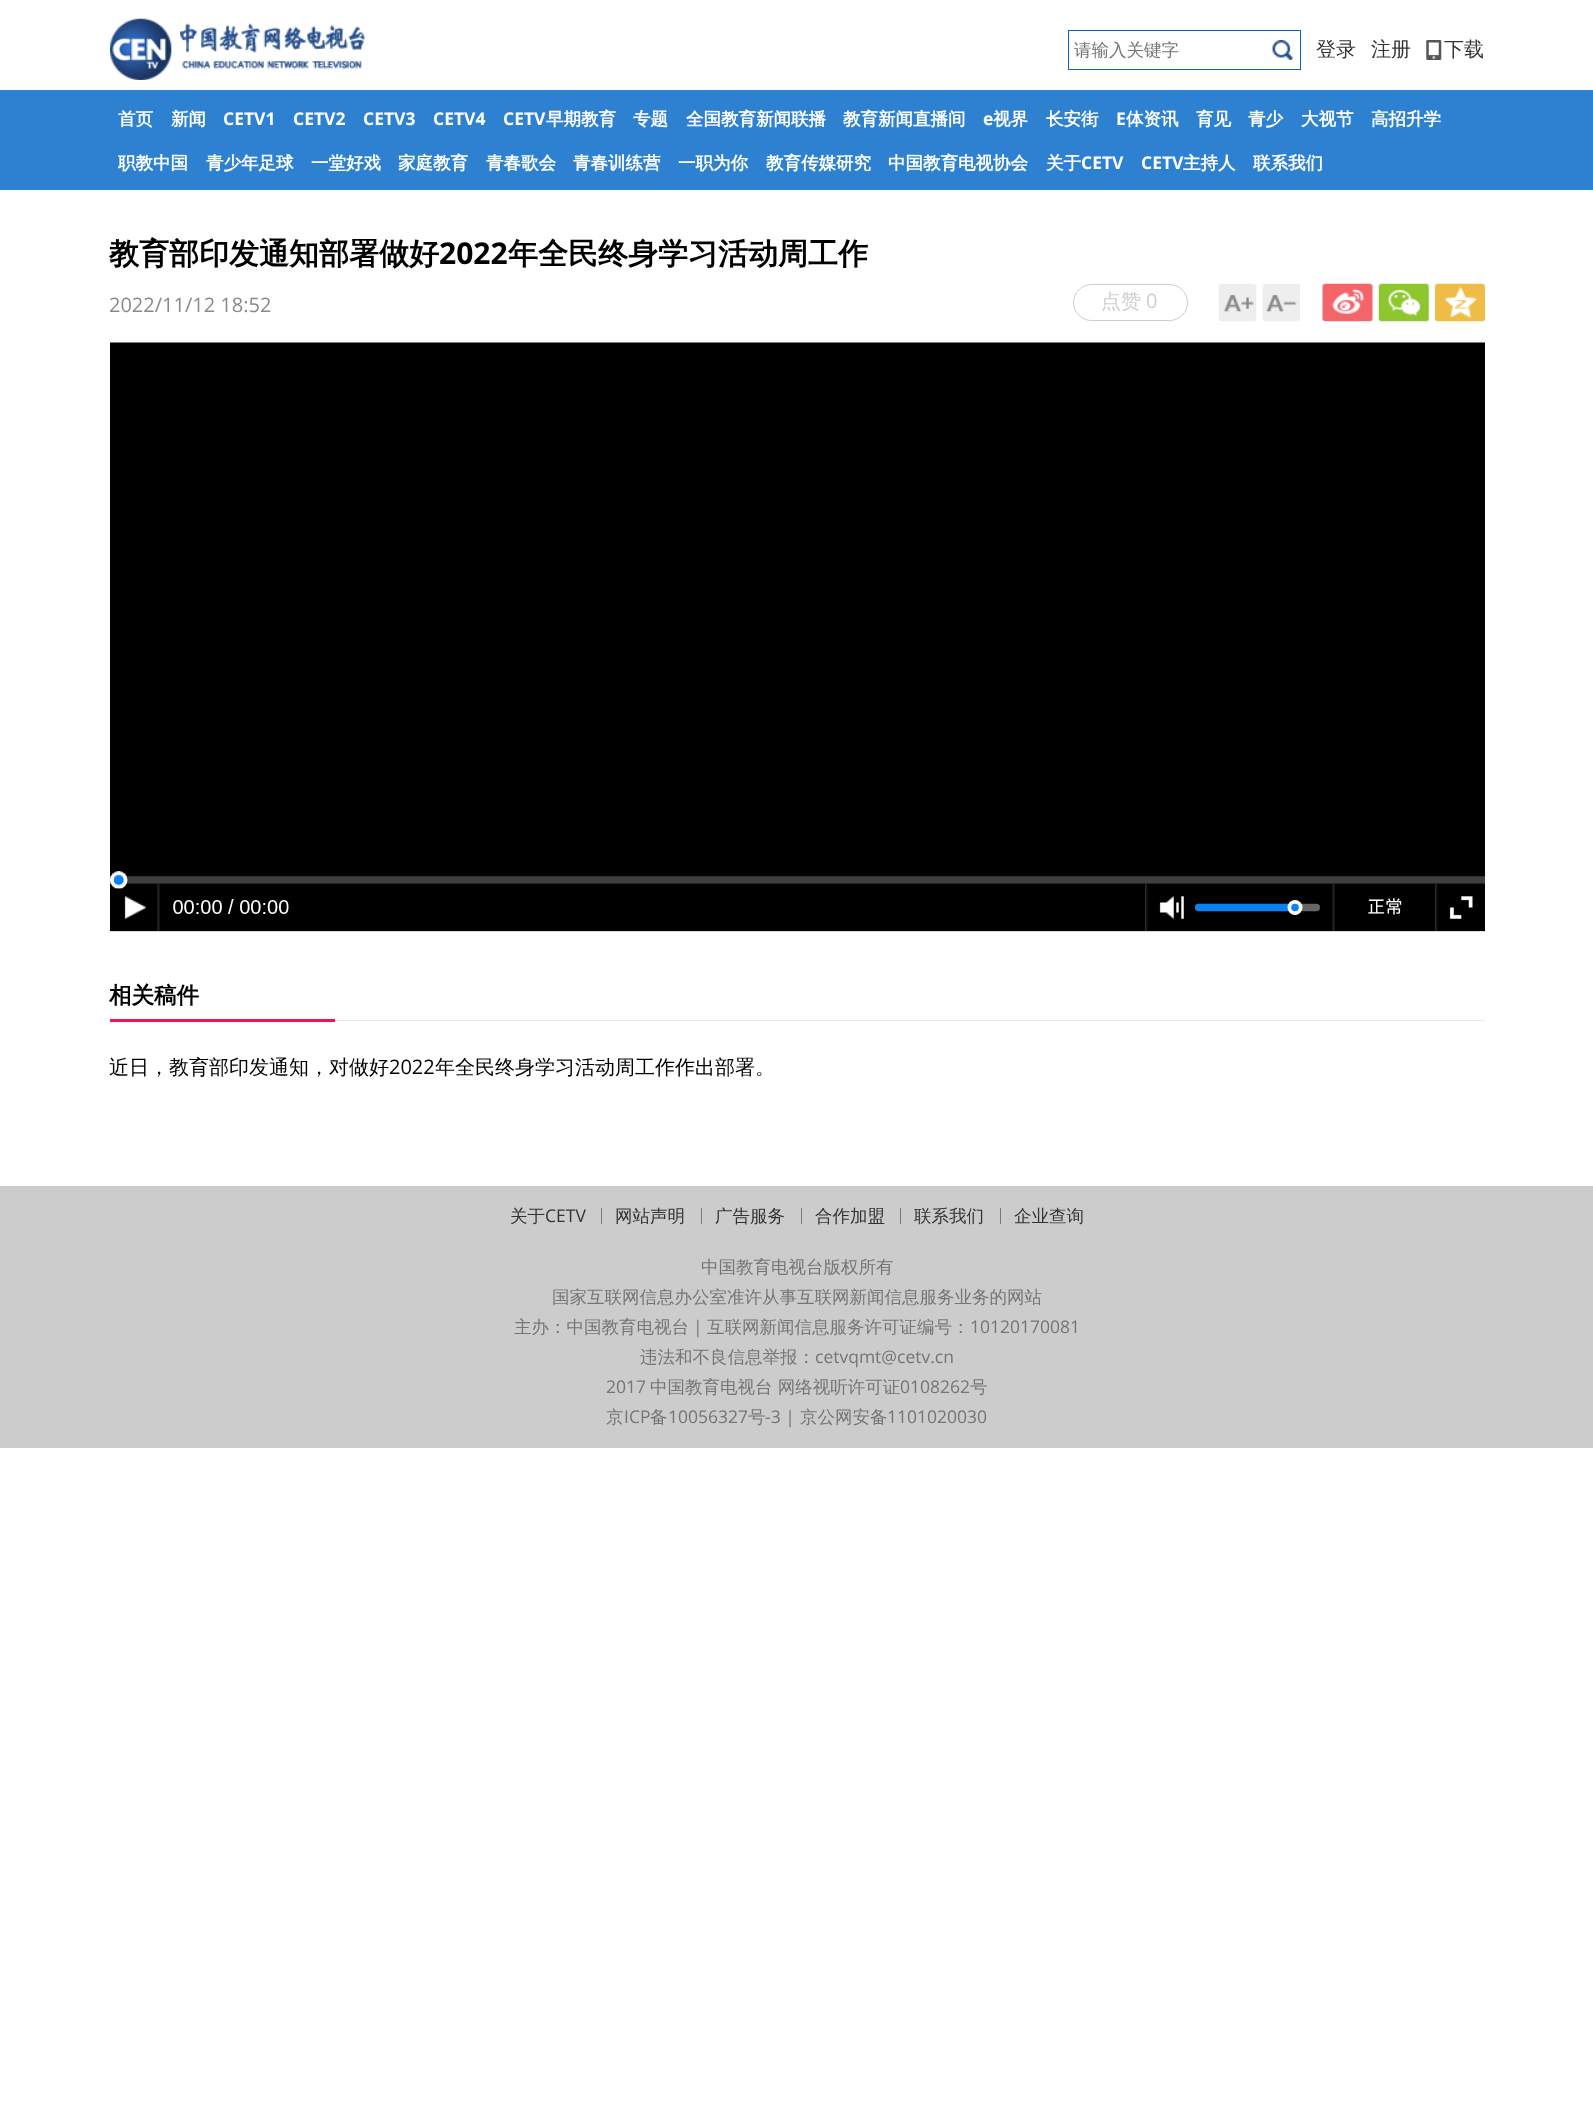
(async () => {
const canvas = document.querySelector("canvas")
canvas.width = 1593
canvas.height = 2116
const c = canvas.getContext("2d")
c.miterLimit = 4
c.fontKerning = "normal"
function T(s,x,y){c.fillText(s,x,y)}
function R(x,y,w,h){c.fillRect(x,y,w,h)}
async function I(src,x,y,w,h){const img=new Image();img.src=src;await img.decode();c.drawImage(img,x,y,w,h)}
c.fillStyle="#fff"
R(0,0,1593,2116)
await I("1.png",110,18,255,62)
c.strokeStyle="#0864bb"
c.strokeRect(1068.5,30.5,232,39)
c.font="500 17.5px WenQuanYi Zen Hei"
c.fillStyle="#757575"
T("请输入关键字",1074,56)
await I("2.png",1272,40,21,20)
c.font="500 20px WenQuanYi Zen Hei"
c.fillStyle="#333"
T("登录",1316,56)
T("注册",1371,56)
await I("3.png",1426,40,16,20)
T("下载",1444,56)
c.fillStyle="#2d81d0"
R(0,90,1593,100)
c.font="bold 17.5px WenQuanYi Zen Hei"
c.fillStyle="#fff"
T("首页",118,125)
T("新闻",171,125)
c.font="bold 17.5px Open Sans"
T("CETV1",223,125)
T("CETV2",293,125)
T("CETV3",363,125)
T("CETV4",433,125)
T("CETV",503,125)
c.font="bold 17.5px WenQuanYi Zen Hei"
T("早期教育",546,125)
T("专题",633,125)
T("全国教育新闻联播",686,125)
T("教育新闻直播间",843,125)
c.font="bold 17.5px Open Sans"
T("e",983,125)
c.font="bold 17.5px WenQuanYi Zen Hei"
T("视界",993,125)
T("长安街",1046,125)
c.font="bold 17.5px Open Sans"
T("E",1116,125)
c.font="bold 17.5px WenQuanYi Zen Hei"
T("体资讯",1126,125)
T("育见",1196,125)
T("青少",1248,125)
T("大视节",1301,125)
T("高招升学",1371,125)
T("职教中国",118,169)
T("青少年足球",206,169)
T("一堂好戏",311,169)
T("家庭教育",398,169)
T("青春歌会",486,169)
T("青春训练营",573,169)
T("一职为你",678,169)
T("教育传媒研究",766,169)
T("中国教育电视协会",888,169)
T("关于",1046,169)
c.font="bold 17.5px Open Sans"
T("CETV",1081,169)
T("CETV",1141,169)
c.font="bold 17.5px WenQuanYi Zen Hei"
T("主持人",1183,169)
T("联系我们",1253,169)
c.font="bold 30px WenQuanYi Zen Hei"
c.fillStyle="#000"
T("教育部印发通知部署做好",109,264)
c.font="bold 30px Open Sans"
T("2022",439,264)
c.font="bold 30px WenQuanYi Zen Hei"
T("年全民终身学习活动周工作",508,264)
c.font="20px Open Sans"
c.fillStyle="#8a8a8a"
T("2022/11/12 18:52",109,312)
c.beginPath()
c.roundRect(1073.5,284.5,114,36,18)
c.strokeStyle="#cdcdcd"
c.stroke()
c.font="500 20px WenQuanYi Zen Hei"
c.fillStyle="#cdcdcd"
T("点赞",1101,308)
c.font="20px Open Sans"
T("0",1146,308)
await I("4.png",1218,283,39,39)
await I("5.png",1262,283,38,39)
await I("6.png",1322,283,51,39)
await I("7.png",1378,283,51,39)
await I("8.png",1435,283,50,39)
await I("9.png",110,342,1375,590)
c.fillStyle="#e9e9e9"
R(335,1020,1150,1)
c.fillStyle="#ff0c56"
R(110,1019,225,3)
c.font="bold 22.5px WenQuanYi Zen Hei"
c.fillStyle="#000"
T("相关稿件",109,1003)
c.font="500 20px WenQuanYi Zen Hei"
T("近日，教育部印发通知，对做好",109,1074)
c.font="20px Open Sans"
T("2022",389,1074)
c.font="500 20px WenQuanYi Zen Hei"
T("年全民终身学习活动周工作作出部署。",435,1074)
c.fillStyle="#ccc"
R(0,1186,1593,262)
c.font="500 17.5px WenQuanYi Zen Hei"
c.fillStyle="#333"
T("关于",510,1222)
c.font="17.5px Open Sans"
T("CETV",545,1222)
c.fillStyle="#797979"
R(601,1208,1,16)
c.font="500 17.5px WenQuanYi Zen Hei"
c.fillStyle="#333"
T("网站声明",615,1222)
c.fillStyle="#797979"
R(701,1208,1,16)
c.fillStyle="#333"
T("广告服务",715,1222)
c.fillStyle="#797979"
R(801,1208,1,16)
c.fillStyle="#333"
T("合作加盟",815,1222)
c.fillStyle="#797979"
R(900,1208,1,16)
c.fillStyle="#333"
T("联系我们",914,1222)
c.fillStyle="#797979"
R(1000,1208,1,16)
c.fillStyle="#333"
T("企业查询",1014,1222)
c.fillStyle="#757575"
T("中国教育电视台版权所有",701,1273)
T("国家互联网信息办公室准许从事互联网新闻信息服务业务的网站",552,1303)
T("主办：中国教育电视台",514,1333)
c.font="17.5px Open Sans"
T("|",693,1333)
c.font="500 17.5px WenQuanYi Zen Hei"
T("互联网新闻信息服务许可证编号：",707,1333)
c.font="17.5px Open Sans"
T("10120170081",970,1333)
c.font="500 17.5px WenQuanYi Zen Hei"
T("违法和不良信息举报：",640,1363)
c.font="17.5px Open Sans"
T("cetvqmt@cetv.cn",815,1363)
T("2017",606,1393)
c.font="500 17.5px WenQuanYi Zen Hei"
T("中国教育电视台 网络视听许可证",650,1393)
c.font="17.5px Open Sans"
T("0108262",900,1393)
c.font="500 17.5px WenQuanYi Zen Hei"
T("号",970,1393)
T("京",606,1423)
c.font="17.5px Open Sans"
T("ICP",624,1423)
c.font="500 17.5px WenQuanYi Zen Hei"
T("备",650,1423)
c.font="17.5px Open Sans"
T("10056327",668,1423)
c.font="500 17.5px WenQuanYi Zen Hei"
T("号",748,1423)
c.font="17.5px Open Sans"
T("-3 |",765,1423)
c.font="500 17.5px WenQuanYi Zen Hei"
T("京公网安备",800,1423)
c.font="17.5px Open Sans"
T("1101020030",887,1423)
})()
